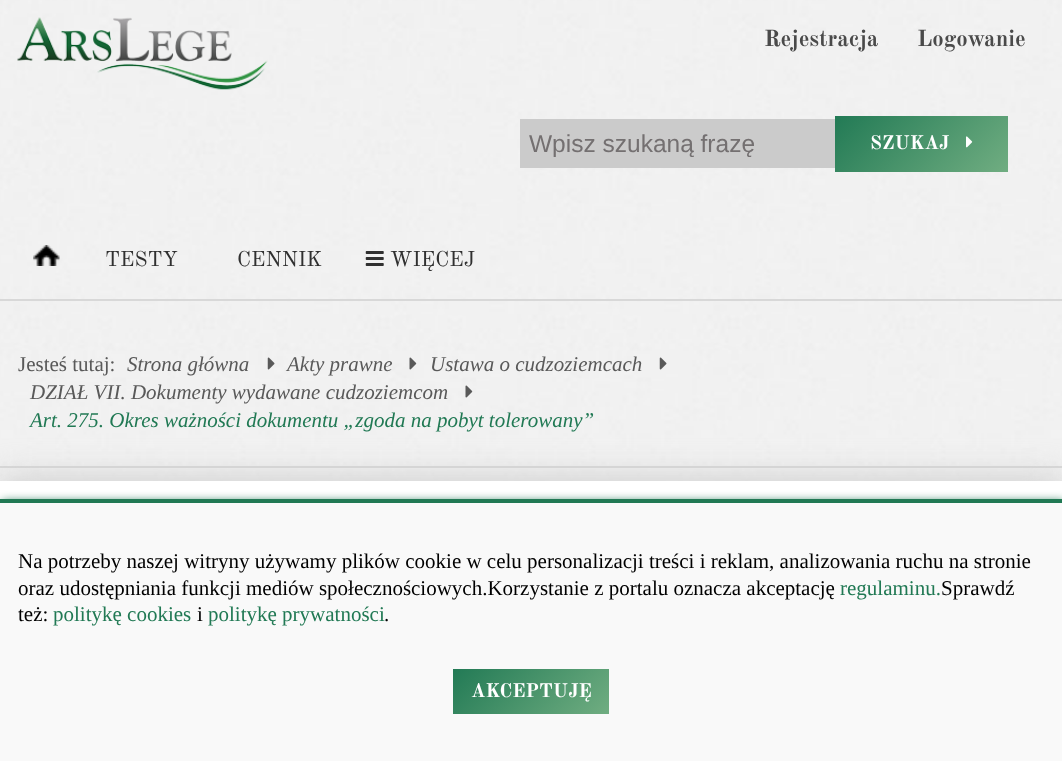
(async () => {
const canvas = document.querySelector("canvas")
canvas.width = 1062
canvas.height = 761
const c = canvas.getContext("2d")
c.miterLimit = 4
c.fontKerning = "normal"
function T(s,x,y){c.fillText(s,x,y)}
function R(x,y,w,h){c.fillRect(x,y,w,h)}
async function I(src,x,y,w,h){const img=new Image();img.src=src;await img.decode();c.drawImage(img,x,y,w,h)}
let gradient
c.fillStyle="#fff"
R(0,0,1062,761)
await I("1.png",0,0,1062,481)
await I("2.png",17,17,251,73)
c.font="bold 22.75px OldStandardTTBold"
c.fillStyle="#4a4a4a"
T("Rejestracja",764,46)
T("Logowanie",917,46)
c.fillStyle="#cbcbcb"
R(520,119,315,49)
c.font="24.5px Liberation Sans"
c.fillStyle="#747071"
T("Wpisz szukaną frazę",529,152)
gradient = c.createLinearGradient(893,57,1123,286)
gradient.addColorStop(0,"#227a55")
gradient.addColorStop(.5,"#70ad81")
gradient.addColorStop(1,"#227a55")
c.fillStyle = gradient
R(835,116,173,56)
c.font="bold 19.25px OldStandardTTBold"
c.fillStyle="#fff"
T("SZUKAJ",870,149)
await I("3.png",966,136,7,12)
await I("4.png",33,245,27,21)
c.font="21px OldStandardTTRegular"
c.fillStyle="#303030"
T("TESTY",105,266)
T("CENNIK",237,266)
await I("5.png",365,251,19,15)
T("WIĘCEJ",390,266)
c.fillStyle="#d8d8d8"
R(0,299,1062,2)
c.font="21px Liberation Serif"
c.fillStyle="#595959"
T("Jesteś tutaj:",18,371)
c.font="italic 21px Liberation Serif"
T("Strona główna",127,371)
await I("6.png",267,357,8,13)
T("Akty prawne",287,371)
await I("7.png",409,357,8,13)
T("Ustawa o cudzoziemcach",430,371)
await I("8.png",659,357,8,13)
T("DZIAŁ VII. Dokumenty wydawane cudzoziemcom",30,399)
await I("9.png",465,385,8,13)
c.fillStyle="#217954"
T("Art. 275. Okres ważności dokumentu „zgoda na pobyt tolerowany”",30,427)
c.fillStyle="#d8d8d8"
R(0,466,1062,2)
c.fillStyle="#ccc"
c.filter="blur(17.5px)"
c.beginPath()
c.rect(-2,480,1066,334)
c.fill()
c.filter="none"
c.fillStyle="#fff"
R(0,481,1062,18)
c.fillStyle="#217954"
c.filter="blur(5px)"
c.beginPath()
c.rect(2,501,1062,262)
c.fill()
c.filter="none"
c.fillStyle="#f9f9f9"
R(0,503,1062,258)
c.fillStyle="#217954"
R(0,499,1062,4)
c.font="21px Liberation Serif"
c.fillStyle="#000"
T("Na potrzeby naszej witryny używamy plików cookie w celu personalizacji treści i reklam, analizowania ruchu na stronie",18,568)
T("oraz udostępniania funkcji mediów społecznościowych.Korzystanie z portalu oznacza akceptację",18,595)
c.fillStyle="#217954"
T("regulaminu.",840,595)
c.fillStyle="#000"
T("Sprawdź",941,595)
T("też:",18,621)
c.fillStyle="#217954"
T("politykę cookies",53,621)
c.fillStyle="#000"
T("i",197,621)
c.fillStyle="#217954"
T("politykę prywatności",208,621)
c.fillStyle="#000"
T(".",384,621)
gradient = c.createLinearGradient(508,613,710,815)
gradient.addColorStop(0,"#227a55")
gradient.addColorStop(.5,"#70ad81")
gradient.addColorStop(1,"#227a55")
c.fillStyle = gradient
R(453,669,156,45)
c.font="bold 19.25px OldStandardTTBold"
c.fillStyle="#fff"
T("AKCEPTUJĘ",471,697)
})()
